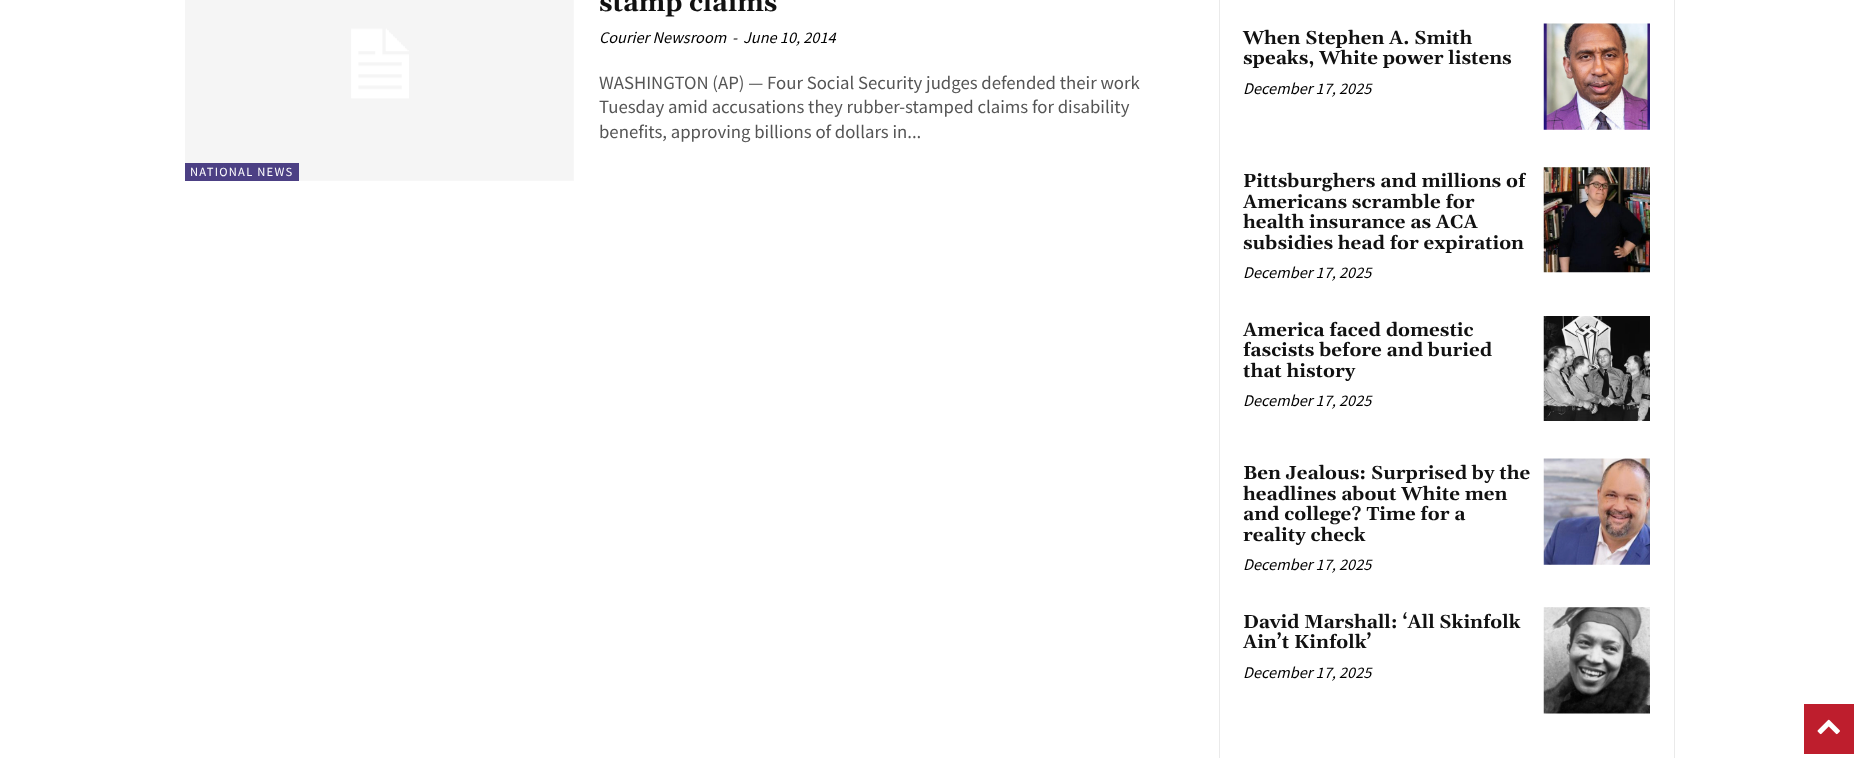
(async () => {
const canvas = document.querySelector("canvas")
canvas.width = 1859
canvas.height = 758
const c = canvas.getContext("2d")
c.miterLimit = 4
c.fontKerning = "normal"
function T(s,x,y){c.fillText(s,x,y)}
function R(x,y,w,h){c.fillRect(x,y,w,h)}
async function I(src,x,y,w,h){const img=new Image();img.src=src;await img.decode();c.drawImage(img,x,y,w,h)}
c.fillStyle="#fff"
R(0,0,1859,758)
c.font="bold 26.25px Gelasio"
c.fillStyle="#111"
T("stamp claims",599,11)
c.font="italic 16.25px Source Sans Pro"
c.fillStyle="#000"
T("Courier Newsroom",599,43)
T("-",732,43)
T("June 10, 2014",743,43)
c.font="18.75px Source Sans Pro"
c.fillStyle="#555"
T("WASHINGTON (AP) — Four Social Security judges defended their work",599,89)
T("Tuesday amid accusations they rubber-stamped claims for disability",599,113)
T("benefits, approving billions of dollars in...",599,138)
await I("1.png",185,0,389,181)
c.fillStyle="#4c4084"
R(185,163,114,18)
c.letterSpacing="1.25px"
c.font="12.5px Source Sans Pro"
c.fillStyle="#fff"
T("NATIONAL NEWS",190,176)
c.strokeStyle="#eaeaea"
c.strokeRect(1219.5,-.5,455,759)
c.letterSpacing="0px"
c.font="bold 18.75px Gelasio"
c.fillStyle="#111"
T("When Stephen A. Smith",1243,44)
T("speaks, White power listens",1243,64)
c.font="italic 16.25px Source Sans Pro"
c.fillStyle="#000"
T("December 17, 2025",1243,94)
await I("2.png",1543,23,107,107)
c.font="bold 18.75px Gelasio"
c.fillStyle="#111"
T("Pittsburghers and millions of",1243,187)
T("Americans scramble for",1243,208)
T("health insurance as ACA",1243,228)
T("subsidies head for expiration",1243,249)
c.font="italic 16.25px Source Sans Pro"
c.fillStyle="#000"
T("December 17, 2025",1243,278)
await I("3.png",1543,167,107,106)
c.font="bold 18.75px Gelasio"
c.fillStyle="#111"
T("America faced domestic",1243,336)
T("fascists before and buried",1243,356)
T("that history",1243,377)
c.font="italic 16.25px Source Sans Pro"
c.fillStyle="#000"
T("December 17, 2025",1243,406)
await I("4.png",1543,316,107,105)
c.font="bold 18.75px Gelasio"
c.fillStyle="#111"
T("Ben Jealous: Surprised by the",1243,479)
T("headlines about White men",1243,500)
T("and college? Time for a",1243,520)
T("reality check",1243,541)
c.font="italic 16.25px Source Sans Pro"
c.fillStyle="#000"
T("December 17, 2025",1243,570)
await I("5.png",1543,458,107,107)
c.font="bold 18.75px Gelasio"
c.fillStyle="#111"
T("David Marshall: ‘All Skinfolk",1243,628)
T("Ain’t Kinfolk’",1243,648)
c.font="italic 16.25px Source Sans Pro"
c.fillStyle="#000"
T("December 17, 2025",1243,678)
await I("6.png",1543,607,107,107)
c.fillStyle="#be1e2d"
R(1804,704,50,50)
await I("7.png",1817,719,23,16)
})()
